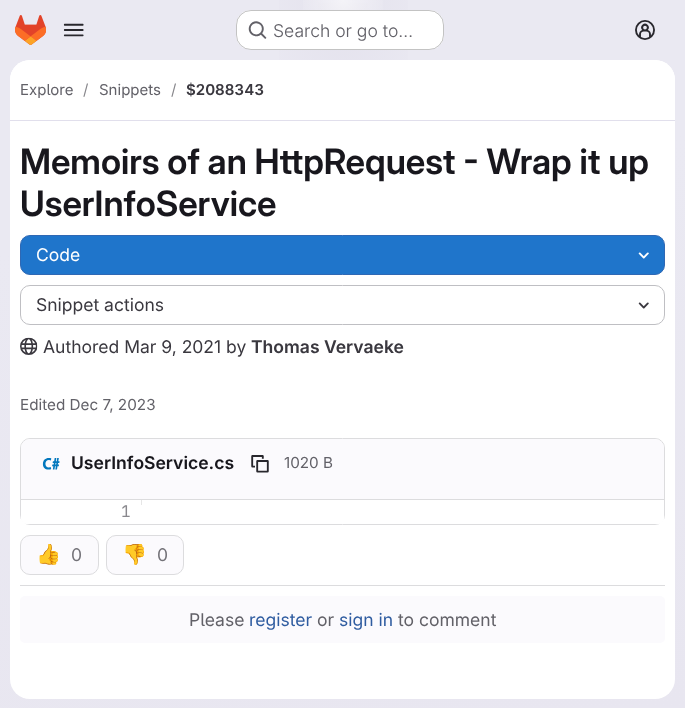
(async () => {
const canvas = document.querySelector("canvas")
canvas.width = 685
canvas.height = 708
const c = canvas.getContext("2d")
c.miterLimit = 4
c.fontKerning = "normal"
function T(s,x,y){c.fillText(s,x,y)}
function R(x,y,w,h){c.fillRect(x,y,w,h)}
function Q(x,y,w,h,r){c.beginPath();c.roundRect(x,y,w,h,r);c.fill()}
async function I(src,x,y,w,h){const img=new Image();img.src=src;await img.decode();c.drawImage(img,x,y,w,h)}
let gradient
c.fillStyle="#fff"
R(0,0,685,708)
gradient = c.createLinearGradient(413,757,272,-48)
gradient.addColorStop(0,"#e8e6f0")
gradient.addColorStop(.7,"#eae9f2")
c.fillStyle = gradient
R(0,0,685,708)
gradient = c.createRadialGradient(343,0,0,343,0,343)
gradient.addColorStop(0,"#e4e2ed")
gradient.addColorStop(.26,"#e4e2ed00")
c.fillStyle = gradient
c.beginPath()
c.rect(279,0,129,60)
c.save()
c.clip()
c.scale(1,709 / 343)
c.fillRect(0,0,685,343)
c.restore()
gradient = c.createRadialGradient(343,0,0,343,0,343)
gradient.addColorStop(0,"#e4e2ec")
gradient.addColorStop(.18,"#e4e2ec00")
c.fillStyle = gradient
c.beginPath()
c.rect(318,3,50,39)
c.save()
c.clip()
c.scale(1,709 / 343)
c.fillRect(0,0,685,343)
c.restore()
gradient = c.createRadialGradient(343,0,0,343,0,787)
gradient.addColorStop(0,"#ffffff99")
gradient.addColorStop(.06,"#ffffff00")
c.fillStyle = gradient
R(303,0,80,10)
await I("1.png",15,15,31,30)
await I("2.png",63,23,21,14)
c.fillStyle="#fff"
Q(236,10,208,40,15)
c.beginPath()
c.roundRect(236.5,10.5,207,39,14.5)
c.strokeStyle="#0505063d"
c.stroke()
await I("3.png",248,21,19,18)
c.font="300 17.5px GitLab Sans"
c.fillStyle="#626168"
T("Search or go to…",273,37)
await I("4.png",635,20,20,20)
c.fillStyle="#fff"
Q(10,60,665,639,20)
c.beginPath()
c.roundRect(10,60,665,61,[20,20,0,0])
c.fill()
c.fillStyle="#e1dfec"
R(10,120,665,1)
c.font="15px GitLab Sans"
c.fillStyle="#626168"
T("Explore",20,95)
c.fillStyle="#89888d"
T("/",83,95)
c.fillStyle="#626168"
T("Snippets",99,95)
c.fillStyle="#89888d"
T("/",171,95)
c.font="600 15px 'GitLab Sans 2'"
c.fillStyle="#3a383f"
T("$2088343",186,95)
c.font="600 35px GitLab Sans"
c.fillStyle="#18171d"
T("Memoirs of an HttpRequest - Wrap it up",20,174)
T("UserInfoService",20,216)
c.fillStyle="#1f75cb"
c.beginPath()
c.roundRect(20.5,235.5,644,39,9.5)
c.fill()
c.strokeStyle="#2f68b4"
c.stroke()
c.font="17.5px GitLab Sans"
c.fillStyle="#fff"
T("Code",36,261)
await I("5.png",638,252,11,7)
c.beginPath()
c.roundRect(20.5,285.5,644,39,9.5)
c.strokeStyle="#bfbfc3"
c.stroke()
c.fillStyle="#3a383f"
T("Snippet actions",36,311)
await I("6.png",638,302,11,7)
await I("7.png",20,337,18,18)
T("Authored Mar 9, 2021 by",43,353)
c.font="600 17.5px 'GitLab Sans 2'"
T("Thomas Vervaeke",251,353)
c.font="15.25px GitLab Sans"
c.fillStyle="#626168"
T("Edited Dec 7, 2023",20,410)
c.beginPath()
c.roundRect(20.5,438.5,644,86,9.5)
c.strokeStyle="#dcdcde"
c.stroke()
c.fillStyle="#fbfafd"
c.beginPath()
c.roundRect(21,439,643,61,[9,9,0,0])
c.fill()
c.fillStyle="#dcdcde"
R(21,499,643,1)
await I("8.png",42,458,18,12)
c.font="600 17.5px 'GitLab Sans 2'"
c.fillStyle="#18171d"
T("UserInfoService.cs",71,469)
await I("9.png",251,455,18,18)
c.font="15.25px GitLab Sans"
c.fillStyle="#626168"
T("1020 B",284,468)
c.fillStyle="#fff"
c.beginPath()
c.roundRect(21,500,643,24,[0,0,5,5])
c.fill()
c.fillStyle="#e6e6e6"
R(141,500,1,5)
c.font="16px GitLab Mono"
c.fillStyle="#89888d"
T("1",121,517)
c.fillStyle="#dcdcde"
R(20,585,645,1)
c.fillStyle="#fbfafd"
c.beginPath()
c.roundRect(20.5,535.5,78,39,9.5)
c.fill()
c.stroke()
c.save()
c.beginPath()
c.rect(36,544,47,22)
c.clip()
c.font="20px Noto Color Emoji"
c.fillStyle="#737278"
T("👍",36,561)
c.restore()
c.font="17.5px GitLab Sans"
c.fillStyle="#737278"
T("0",71,561)
c.fillStyle="#fbfafd"
c.beginPath()
c.roundRect(106.5,535.5,77,39,9.5)
c.fill()
c.stroke()
c.save()
c.beginPath()
c.rect(123,544,45,22)
c.clip()
c.font="20px Noto Color Emoji"
c.fillStyle="#737278"
T("👎",122,561)
c.restore()
c.fillStyle="#737278"
T("0",157,561)
c.fillStyle="#fbfafd"
Q(20,596,645,47,5)
c.fillStyle="#626168"
T("Please",189,626)
c.fillStyle="#2f5ca0"
T("register",249,626)
c.fillStyle="#626168"
T("or",317,626)
c.fillStyle="#2f5ca0"
T("sign in",339,626)
c.fillStyle="#626168"
T("to comment",398,626)
})()
